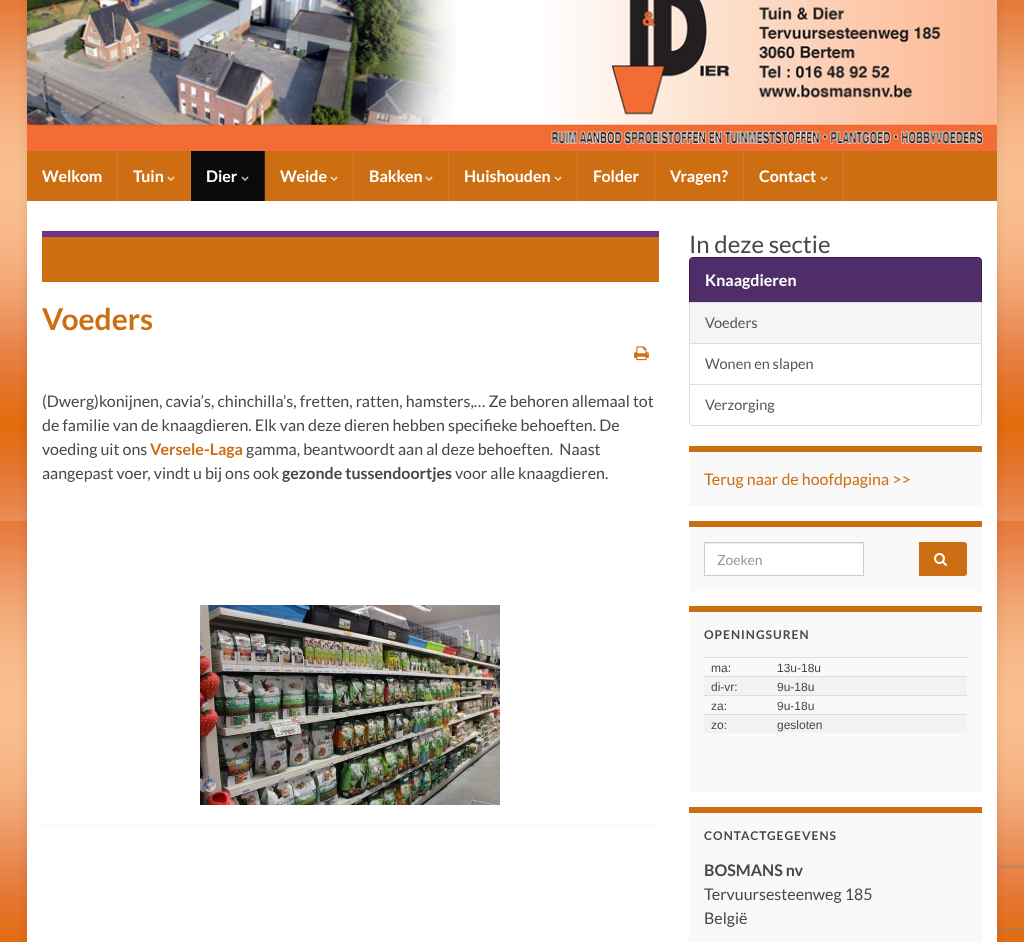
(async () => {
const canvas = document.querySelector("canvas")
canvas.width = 1024
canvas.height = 942
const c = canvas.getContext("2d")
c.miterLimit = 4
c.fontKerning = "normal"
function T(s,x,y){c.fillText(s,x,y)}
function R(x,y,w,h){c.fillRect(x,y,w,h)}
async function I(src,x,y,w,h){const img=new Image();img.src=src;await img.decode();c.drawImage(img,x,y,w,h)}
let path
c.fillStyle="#fff"
R(0,0,1024,942)
await I("1.png",0,0,1024,942)
c.fillStyle="#0000001a"
c.filter="blur(5px)"
c.beginPath()
c.rect(27,-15,970,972)
c.fill()
c.filter="none"
await I("2.png",27,0,970,151)
c.fillStyle="#ce6e12"
R(27,151,970,50)
c.fillStyle="#d37d2a"
R(117,151,1,50)
c.font="bold 16px Lato"
c.fillStyle="#fff"
T("Welkom",42,182)
c.fillStyle="#d37d2a"
R(190,151,1,50)
c.fillStyle="#fff"
T("Tuin",133,182)
await I("3.png",167,176,8,5)
c.fillStyle="#0b0a0b"
R(191,151,73,50)
c.fillStyle="#232323"
R(264,151,1,50)
c.fillStyle="#fff"
T("Dier",206,182)
await I("4.png",241,176,8,5)
c.fillStyle="#d37d2a"
R(353,151,1,50)
c.fillStyle="#fff"
T("Weide",280,182)
await I("3.png",330,176,8,5)
c.fillStyle="#d37d2a"
R(448,151,1,50)
c.fillStyle="#fff"
T("Bakken",369,182)
await I("3.png",425,176,8,5)
c.fillStyle="#d37d2a"
R(577,151,1,50)
c.fillStyle="#fff"
T("Huishouden",464,182)
await I("3.png",554,176,8,5)
c.fillStyle="#d37d2a"
R(654,151,1,50)
c.fillStyle="#fff"
T("Folder",593,182)
c.fillStyle="#d37d2a"
R(743,151,1,50)
c.fillStyle="#fff"
T("Vragen?",670,182)
c.fillStyle="#d37d2a"
R(843,151,1,50)
c.fillStyle="#fff"
T("Contact",759,182)
await I("3.png",820,176,8,5)
c.save()
path = new Path2D("M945 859h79v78h-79zm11 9h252c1 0 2 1 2 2v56c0 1-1 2-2 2h-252c-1 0-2-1-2-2v-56c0-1 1-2 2-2z")
c.clip(path,"evenodd")
c.fillStyle="#808080"
c.filter="blur(2.5px)"
c.beginPath()
c.roundRect(954,868,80,60,2)
c.fill()
c.filter="none"
c.restore()
R(27,201,970,741)
c.fillStyle="#ce6e12"
R(42,237,617,45)
c.fillStyle="#6b3589"
R(42,231,617,6)
c.font="bold 30px Lato"
c.fillStyle="#ce6e12"
T("Voeders",42,330)
await I("5.png",634,346,15,15)
c.font="16px Lato"
c.fillStyle="#4a474b"
T("(Dwerg)konijnen, cavia’s, chinchilla’s, fretten, ratten, hamsters,… Ze behoren allemaal tot",42,407)
T("de familie van de knaagdieren. Elk van deze dieren hebben specifieke behoeften. De",42,431)
T("voeding uit ons",42,455)
c.font="bold 16px Lato"
c.fillStyle="#ce6e12"
T("Versele-Laga",150,455)
c.font="16px Lato"
c.fillStyle="#4a474b"
T("gamma, beantwoordt aan al deze behoeften.  Naast",246,455)
T("aangepast voer, vindt u bij ons ook",42,479)
c.font="bold 16px Lato"
T("gezonde tussendoortjes",282,479)
c.font="16px Lato"
T("voor alle knaagdieren.",455,479)
await I("6.png",200,605,300,200)
c.fillStyle="#f5f5f5"
R(42,825,617,1)
c.font="24px Lato"
c.fillStyle="#4a474b"
T("In deze sectie",689,253)
c.fillStyle="#4f2d69"
c.beginPath()
c.roundRect(689.5,257.5,292,45,[3.5,3.5,0,0])
c.fill()
c.strokeStyle="#3c1c54"
c.stroke()
c.font="bold 16px Lato"
c.fillStyle="#fff"
T("Knaagdieren",705,286)
c.strokeStyle="#ddd"
c.strokeRect(689.5,343.5,292,41)
c.fillStyle="#f5f5f5"
c.beginPath()
c.rect(689.5,302.5,292,41)
c.fill()
c.stroke()
c.font="14.5px Lato"
c.fillStyle="#555"
T("Voeders",705,328)
T("Wonen en slapen",705,369)
c.fillStyle="#fff"
c.beginPath()
c.roundRect(689.5,384.5,292,41,[0,0,3.5,3.5])
c.fill()
c.stroke()
c.fillStyle="#555"
T("Verzorging",705,410)
c.fillStyle="#f9f9f9"
R(689,452,293,54)
c.fillStyle="#ce6e12"
R(689,446,293,6)
c.font="16px Lato"
T("Terug naar de hoofdpagina >>",704,485)
c.fillStyle="#f9f9f9"
R(689,527,293,64)
c.fillStyle="#ce6e12"
R(689,521,293,6)
c.fillStyle="#fff"
R(705,544,158,31)
c.fillStyle="#ececec"
R(705,543,158,1)
c.strokeStyle="#ccc"
c.strokeRect(704.5,542.5,159,33)
c.font="14px Lato"
c.fillStyle="#999"
T("Zoeken",717,565)
c.fillStyle="#ce6e12"
c.beginPath()
c.roundRect(919,542,48,34,[0,3,3,0])
c.fill()
await I("7.png",934,553,13,13)
c.fillStyle="#f9f9f9"
R(689,612,293,180)
c.fillStyle="#ce6e12"
R(689,606,293,6)
c.letterSpacing="1px"
c.font="bold 12px Lato"
c.fillStyle="#4a474b"
T("OPENINGSUREN",704,639)
c.fillStyle="#ddd"
R(703,657,264,1)
c.letterSpacing="0px"
c.font="12px Liberation Sans"
c.fillStyle="#4a474b"
T("ma:",711,672)
T("13u-18u",777,672)
c.fillStyle="#ddd"
R(703,676,264,1)
c.fillStyle="#f2f2f2"
R(704,677,263,18)
c.fillStyle="#4a474b"
T("di-vr:",711,691)
T("9u-18u",777,691)
c.fillStyle="#ddd"
R(703,695,264,1)
c.fillStyle="#4a474b"
T("za:",711,710)
T("9u-18u",777,710)
c.fillStyle="#ddd"
R(703,714,264,1)
c.fillStyle="#f2f2f2"
R(704,715,263,18)
c.fillStyle="#4a474b"
T("zo:",711,729)
T("gesloten",777,729)
c.fillStyle="#f9f9f9"
R(689,813,293,129)
c.fillStyle="#ce6e12"
R(689,807,293,6)
c.letterSpacing="1px"
c.font="bold 12px Lato"
c.fillStyle="#4a474b"
T("CONTACTGEGEVENS",704,840)
c.letterSpacing="0px"
c.font="bold 16px Lato"
T("BOSMANS nv",704,876)
c.font="16px Lato"
T("Tervuursesteenweg 185",704,900)
T("België",704,924)
})()
